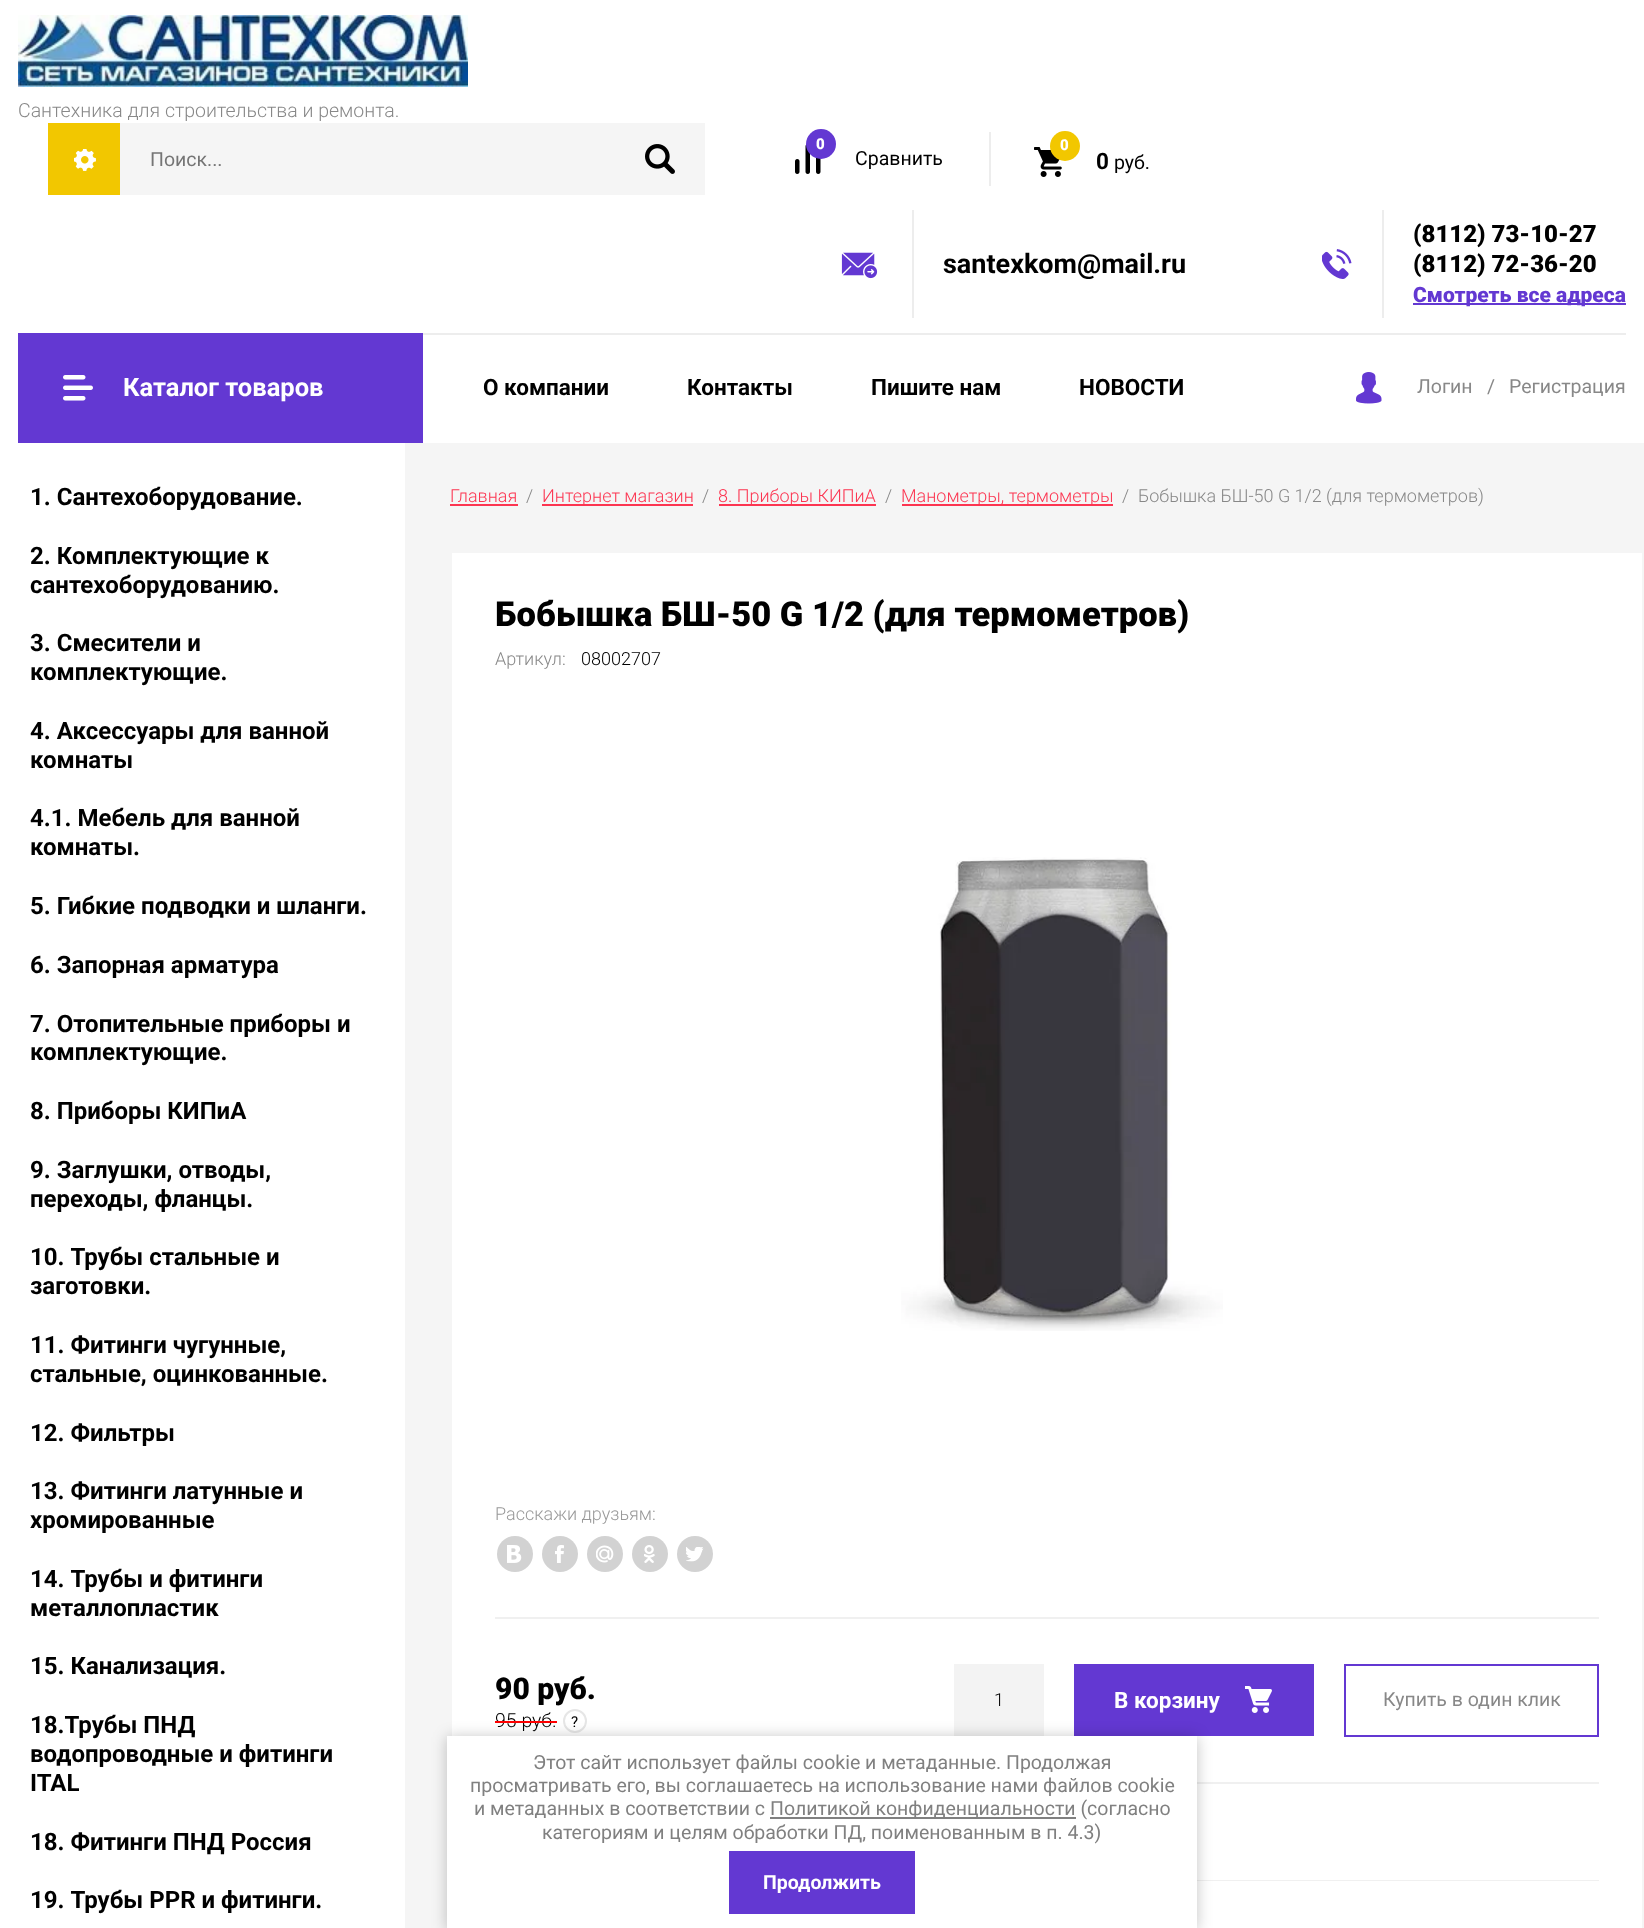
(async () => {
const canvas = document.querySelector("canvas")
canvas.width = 1644
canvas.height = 1928
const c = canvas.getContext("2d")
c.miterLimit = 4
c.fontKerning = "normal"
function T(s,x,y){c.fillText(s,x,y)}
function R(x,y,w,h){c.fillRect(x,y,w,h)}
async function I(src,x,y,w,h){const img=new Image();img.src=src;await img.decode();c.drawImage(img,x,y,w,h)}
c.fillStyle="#f5f5f5"
R(0,0,1644,1928)
c.fillStyle="#fff"
R(0,0,1644,443)
c.fillStyle="#ededed"
R(423,333,1203,2)
await I("1.png",18,15,450,72)
c.font="300 19.5px Roboto"
c.fillStyle="#888"
T("Сантехника для строительства и ремонта.",18,117)
c.fillStyle="#f2c700"
R(48,123,72,72)
await I("2.png",74,149,22,22)
c.fillStyle="#f5f5f5"
R(120,123,585,72)
c.font="19.5px Roboto"
c.fillStyle="#757575"
T("Поиск...",150,166)
await I("3.png",645,144,30,30)
await I("4.png",795,144,26,30)
c.fillStyle="#6338d2"
c.beginPath()
c.arc(821,144,15,0,7)
c.fill()
c.font="900 15px Roboto"
c.fillStyle="#fff"
T("0",816,149)
c.font="19.5px Roboto"
c.fillStyle="#000"
T("Сравнить",855,165)
c.fillStyle="#ededed"
R(989,132,2,54)
await I("5.png",1034,147,28,30)
c.fillStyle="#f2c700"
c.beginPath()
c.arc(1065,146,15,0,7)
c.fill()
c.font="900 15px Roboto"
c.fillStyle="#fff"
T("0",1060,150)
c.font="bold 22.5px Roboto"
c.fillStyle="#000"
T("0",1096,169)
c.font="19.5px Roboto"
T("руб.",1114,169)
c.fillStyle="#ededed"
R(912,210,2,108)
await I("6.png",841,252,37,27)
c.font="bold 27px Roboto"
c.fillStyle="#000"
T("santexkom@mail.ru",943,273)
await I("7.png",1322,249,30,30)
c.fillStyle="#ededed"
R(1382,210,2,108)
c.font="900 24px Roboto"
c.fillStyle="#000"
T("(8112) 73-10-27",1413,242)
T("(8112) 72-36-20",1413,272)
c.fillStyle="#6338d2"
R(1413,303,213,2)
c.font="900 21px Roboto"
T("Смотреть все адреса",1413,302)
R(18,333,405,110)
await I("8.png",63,375,30,26)
c.font="bold 25.5px Roboto"
c.fillStyle="#fff"
T("Каталог товаров",123,396)
c.font="bold 22.5px Roboto"
c.fillStyle="#000"
T("О компании",483,395)
T("Контакты",687,395)
T("Пишите нам",871,395)
T("НОВОСТИ",1079,395)
await I("9.png",1356,372,26,32)
c.font="19.5px Roboto"
c.fillStyle="#888"
T("Логин",1417,393)
T("/",1487,393)
T("Регистрация",1509,393)
c.fillStyle="#fff"
R(0,443,405,1485)
c.font="bold 24px Roboto"
c.fillStyle="#000"
T("1. Сантехоборудование.",30,505)
T("2. Комплектующие к",30,564)
T("сантехоборудованию.",30,593)
T("3. Смесители и",30,651)
T("комплектующие.",30,680)
T("4. Аксессуары для ванной",30,739)
T("комнаты",30,768)
T("4.1. Мебель для ванной",30,826)
T("комнаты.",30,855)
T("5. Гибкие подводки и шланги.",30,914)
T("6. Запорная арматура",30,973)
T("7. Отопительные приборы и",30,1032)
T("комплектующие.",30,1060)
T("8. Приборы КИПиА",30,1119)
T("9. Заглушки, отводы,",30,1178)
T("переходы, фланцы.",30,1207)
T("10. Трубы стальные и",30,1265)
T("заготовки.",30,1294)
T("11. Фитинги чугунные,",30,1353)
T("стальные, оцинкованные.",30,1382)
T("12. Фильтры",30,1441)
T("13. Фитинги латунные и",30,1499)
T("хромированные",30,1528)
T("14. Трубы и фитинги",30,1587)
T("металлопластик",30,1616)
T("15. Канализация.",30,1674)
T("18.Трубы ПНД",30,1733)
T("водопроводные и фитинги",30,1762)
T("ITAL",30,1791)
T("18. Фитинги ПНД Россия",30,1850)
T("19. Трубы PPR и фитинги.",30,1908)
c.font="300 18px Roboto"
c.fillStyle="#fc3551"
T("Главная",450,502)
R(450,504,68,2)
c.fillStyle="#888"
T("/",526,502)
c.fillStyle="#fc3551"
R(542,504,151,2)
T("Интернет магазин",542,502)
c.fillStyle="#888"
T("/",702,502)
c.fillStyle="#fc3551"
R(719,504,157,2)
T("8. Приборы КИПиА",718,502)
c.fillStyle="#888"
T("/",885,502)
c.fillStyle="#fc3551"
R(902,504,211,2)
T("Манометры, термометры",901,502)
c.fillStyle="#888"
T("/  Бобышка БШ-50 G 1/2 (для термометров)",1122,502)
c.fillStyle="#fff"
R(452,553,1190,1375)
c.font="900 34.5px Roboto"
c.fillStyle="#000"
T("Бобышка БШ-50 G 1/2 (для термометров)",495,626)
c.font="300 18px Roboto"
c.fillStyle="#888"
T("Артикул:",495,665)
c.fillStyle="#000"
T("08002707",581,665)
await I("10.png",901,857,322,474)
c.fillStyle="#999"
T("Расскажи друзьям:",495,1520)
c.fillStyle="#d2d2d2"
c.beginPath()
c.arc(515,1554,18,0,7)
c.fill()
await I("11.png",507,1545,15,18)
c.beginPath()
c.arc(560,1554,18,0,7)
c.fill()
await I("12.png",555,1545,9,18)
c.beginPath()
c.arc(605,1554,18,0,7)
c.fill()
await I("13.png",596,1545,18,18)
c.beginPath()
c.arc(650,1554,18,0,7)
c.fill()
await I("14.png",644,1545,11,18)
c.beginPath()
c.arc(695,1554,18,0,7)
c.fill()
await I("15.png",686,1547,18,15)
c.fillStyle="#f0f0f0"
R(495,1617,1104,2)
R(1197,1782,402,2)
c.font="900 30px Roboto"
c.fillStyle="#000"
T("90 руб.",495,1699)
c.font="300 19.5px Roboto"
T("95 руб.",495,1727)
c.beginPath()
c.arc(575,1721,11,0,7)
c.strokeStyle="#e6e6e6"
c.lineWidth=2
c.stroke()
c.font="15px Roboto"
T("?",571,1727)
c.fillStyle="#f00"
R(495,1721,62,2)
c.fillStyle="#f3f3f3"
R(954,1664,90,72)
c.font="300 18px Roboto"
c.fillStyle="#000"
T("1",994,1706)
c.fillStyle="#6338d2"
R(1074,1664,240,72)
c.font="bold 22.5px Roboto"
c.fillStyle="#fff"
T("В корзину",1114,1708)
await I("16.png",1245,1686,27,27)
c.strokeStyle="#6338d2"
c.strokeRect(1345,1665,253,71)
c.font="19.5px Roboto"
c.fillStyle="#888"
T("Купить в один клик",1383,1706)
c.fillStyle="#f0f0f0"
R(1197,1880,402,1)
c.fillStyle="#0000003b"
c.filter="blur(7.5px)"
c.beginPath()
c.rect(447,1737,750,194)
c.fill()
c.filter="none"
c.fillStyle="#fff"
R(447,1736,750,192)
c.fillStyle="#808080"
T("Этот сайт использует файлы cookie и метаданные. Продолжая",533,1769)
T("просматривать его, вы соглашаетесь на использование нами файлов cookie",470,1792)
T("и метаданных в соответствии с",474,1815)
R(770,1817,306,2)
T("Политикой конфиденциальности (согласно",770,1815)
T("категориям и целям обработки ПД, поименованным в п. 4.3)",542,1839)
c.fillStyle="#6338d2"
R(729,1851,186,63)
c.font="bold 19.5px Roboto"
c.fillStyle="#fff"
T("Продолжить",763,1889)
})()
